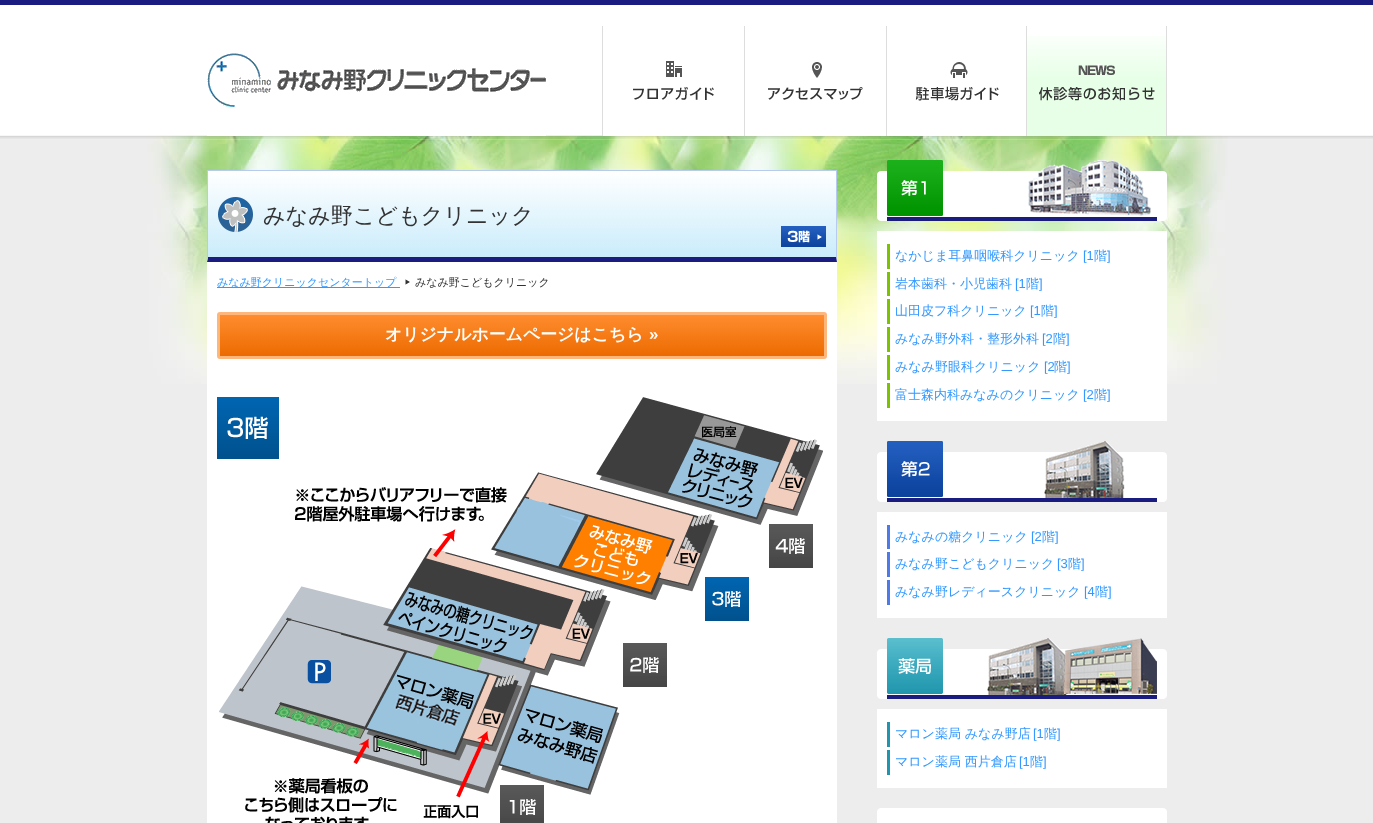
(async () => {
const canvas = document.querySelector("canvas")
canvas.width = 1373
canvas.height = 823
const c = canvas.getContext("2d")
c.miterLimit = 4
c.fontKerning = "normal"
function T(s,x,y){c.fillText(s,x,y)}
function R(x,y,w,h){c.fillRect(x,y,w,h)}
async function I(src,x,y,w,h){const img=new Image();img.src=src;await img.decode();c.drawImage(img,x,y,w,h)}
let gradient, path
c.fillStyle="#ededed"
R(0,0,1373,823)
await I("1.png",147,135,1081,249)
await I("2.png",0,5,1373,135)
c.fillStyle="#1b1c80"
R(0,0,1373,5)
await I("3.png",207,53,339,83)
c.fillStyle="#ddd"
R(602,26,1,110)
R(744,26,1,110)
await I("4.png",603,61,141,75)
R(886,26,1,110)
await I("5.png",745,62,141,74)
R(1026,26,1,110)
await I("6.png",887,62,139,74)
R(1166,26,1,110)
await I("7.png",1027,36,139,100)
c.fillStyle="#fff"
R(207,257,630,566)
gradient = c.createLinearGradient(522,171,522,257)
gradient.addColorStop(0,"#fff")
gradient.addColorStop(1,"#caecfb")
c.fillStyle = gradient
R(208,171,628,86)
c.fillStyle="#b7caf0"
R(207,170,630,1)
path = new Path2D("M837 170v92l-1-5v-86z")
c.fill(path)
c.fillStyle="#1b1c80"
path = new Path2D("M837 262h-630l1-5h628z")
c.fill(path)
c.fillStyle="#b7caf0"
path = new Path2D("M207 262v-92l1 1v86z")
c.fill(path)
await I("8.png",218,197,35,35)
c.font="500 22.1px WenQuanYi Zen Hei"
c.fillStyle="#333"
T("みなみ野こどもクリニック",263,223)
await I("9.png",781,226,45,21)
c.fillStyle="#39f"
R(217,287,183,1)
c.font="500 11px WenQuanYi Zen Hei"
T("みなみ野クリニックセンタートップ",217,286)
await I("10.png",405,279,5,6)
c.fillStyle="#333"
T("みなみ野こどもクリニック",415,286)
gradient = c.createLinearGradient(522,315,522,356)
gradient.addColorStop(0,"#ff8c2f")
gradient.addColorStop(1,"#ec6b00")
c.fillStyle = gradient
R(220,315,604,41)
c.beginPath()
c.roundRect(218.5,313.5,607,44,1.5)
c.strokeStyle="#ffb67a"
c.lineWidth=3
c.stroke()
c.font="bold 16.9px WenQuanYi Zen Hei"
c.fillStyle="#fff"
T("オリジナルホームページはこちら",385,340)
c.font="bold 16.9px Liberation Sans"
T("»",649,340)
await I("11.png",217,397,606,426)
await I("12.png",877,160,290,61)
R(877,231,290,190)
c.fillStyle="#7bc200"
R(887,244,3,25)
c.font="500 13px WenQuanYi Zen Hei"
c.fillStyle="#39f"
T("なかじま耳鼻咽喉科クリニック",895,260)
c.font="13px Liberation Sans"
T("[1",1083,260)
c.font="500 13px WenQuanYi Zen Hei"
T("階",1094,260)
c.font="13px Liberation Sans"
T("]",1107,260)
c.fillStyle="#7bc200"
R(887,272,3,24)
c.font="500 13px WenQuanYi Zen Hei"
c.fillStyle="#39f"
T("岩本歯科・小児歯科",895,288)
c.font="13px Liberation Sans"
T("[1",1015,288)
c.font="500 13px WenQuanYi Zen Hei"
T("階",1026,288)
c.font="13px Liberation Sans"
T("]",1039,288)
c.fillStyle="#7bc200"
R(887,299,3,25)
c.font="500 13px WenQuanYi Zen Hei"
c.fillStyle="#39f"
T("山田皮フ科クリニック",895,315)
c.font="13px Liberation Sans"
T("[1",1030,315)
c.font="500 13px WenQuanYi Zen Hei"
T("階",1041,315)
c.font="13px Liberation Sans"
T("]",1054,315)
c.fillStyle="#7bc200"
R(887,327,3,25)
c.font="500 13px WenQuanYi Zen Hei"
c.fillStyle="#39f"
T("みなみ野外科・整形外科",895,343)
c.font="13px Liberation Sans"
T("[2",1042,343)
c.font="500 13px WenQuanYi Zen Hei"
T("階",1053,343)
c.font="13px Liberation Sans"
T("]",1066,343)
c.fillStyle="#7bc200"
R(887,355,3,25)
c.font="500 13px WenQuanYi Zen Hei"
c.fillStyle="#39f"
T("みなみ野眼科クリニック",895,371)
c.font="13px Liberation Sans"
T("[2",1044,371)
c.font="500 13px WenQuanYi Zen Hei"
T("階",1054,371)
c.font="13px Liberation Sans"
T("]",1067,371)
c.fillStyle="#7bc200"
R(887,383,3,25)
c.font="500 13px WenQuanYi Zen Hei"
c.fillStyle="#39f"
T("富士森内科みなみのクリニック",895,399)
c.font="13px Liberation Sans"
T("[2",1083,399)
c.font="500 13px WenQuanYi Zen Hei"
T("階",1094,399)
c.font="13px Liberation Sans"
T("]",1107,399)
await I("13.png",877,441,290,61)
c.fillStyle="#fff"
R(877,512,290,106)
c.fillStyle="#4d79ea"
R(887,525,3,24)
c.font="500 13px WenQuanYi Zen Hei"
c.fillStyle="#39f"
T("みなみの糖クリニック",895,541)
c.font="13px Liberation Sans"
T("[2",1031,541)
c.font="500 13px WenQuanYi Zen Hei"
T("階",1042,541)
c.font="13px Liberation Sans"
T("]",1055,541)
c.fillStyle="#4d79ea"
R(887,552,3,25)
c.font="500 13px WenQuanYi Zen Hei"
c.fillStyle="#39f"
T("みなみ野こどもクリニック",895,568)
c.font="13px Liberation Sans"
T("[3",1057,568)
c.font="500 13px WenQuanYi Zen Hei"
T("階",1068,568)
c.font="13px Liberation Sans"
T("]",1081,568)
c.fillStyle="#4d79ea"
R(887,580,3,25)
c.font="500 13px WenQuanYi Zen Hei"
c.fillStyle="#39f"
T("みなみ野レディースクリニック",895,596)
c.font="13px Liberation Sans"
T("[4",1084,596)
c.font="500 13px WenQuanYi Zen Hei"
T("階",1095,596)
c.font="13px Liberation Sans"
T("]",1108,596)
await I("14.png",877,638,290,61)
c.fillStyle="#fff"
R(877,709,290,79)
c.fillStyle="#2195ae"
R(887,722,3,25)
c.font="500 13px WenQuanYi Zen Hei"
c.fillStyle="#39f"
T("マロン薬局 みなみ野店",895,738)
c.font="13px Liberation Sans"
T("[1",1033,738)
c.font="500 13px WenQuanYi Zen Hei"
T("階",1044,738)
c.font="13px Liberation Sans"
T("]",1057,738)
c.fillStyle="#2195ae"
R(887,750,3,25)
c.font="500 13px WenQuanYi Zen Hei"
c.fillStyle="#39f"
T("マロン薬局 西片倉店",895,766)
c.font="13px Liberation Sans"
T("[1",1019,766)
c.font="500 13px WenQuanYi Zen Hei"
T("階",1030,766)
c.font="13px Liberation Sans"
T("]",1043,766)
await I("15.png",877,808,290,15)
})()
